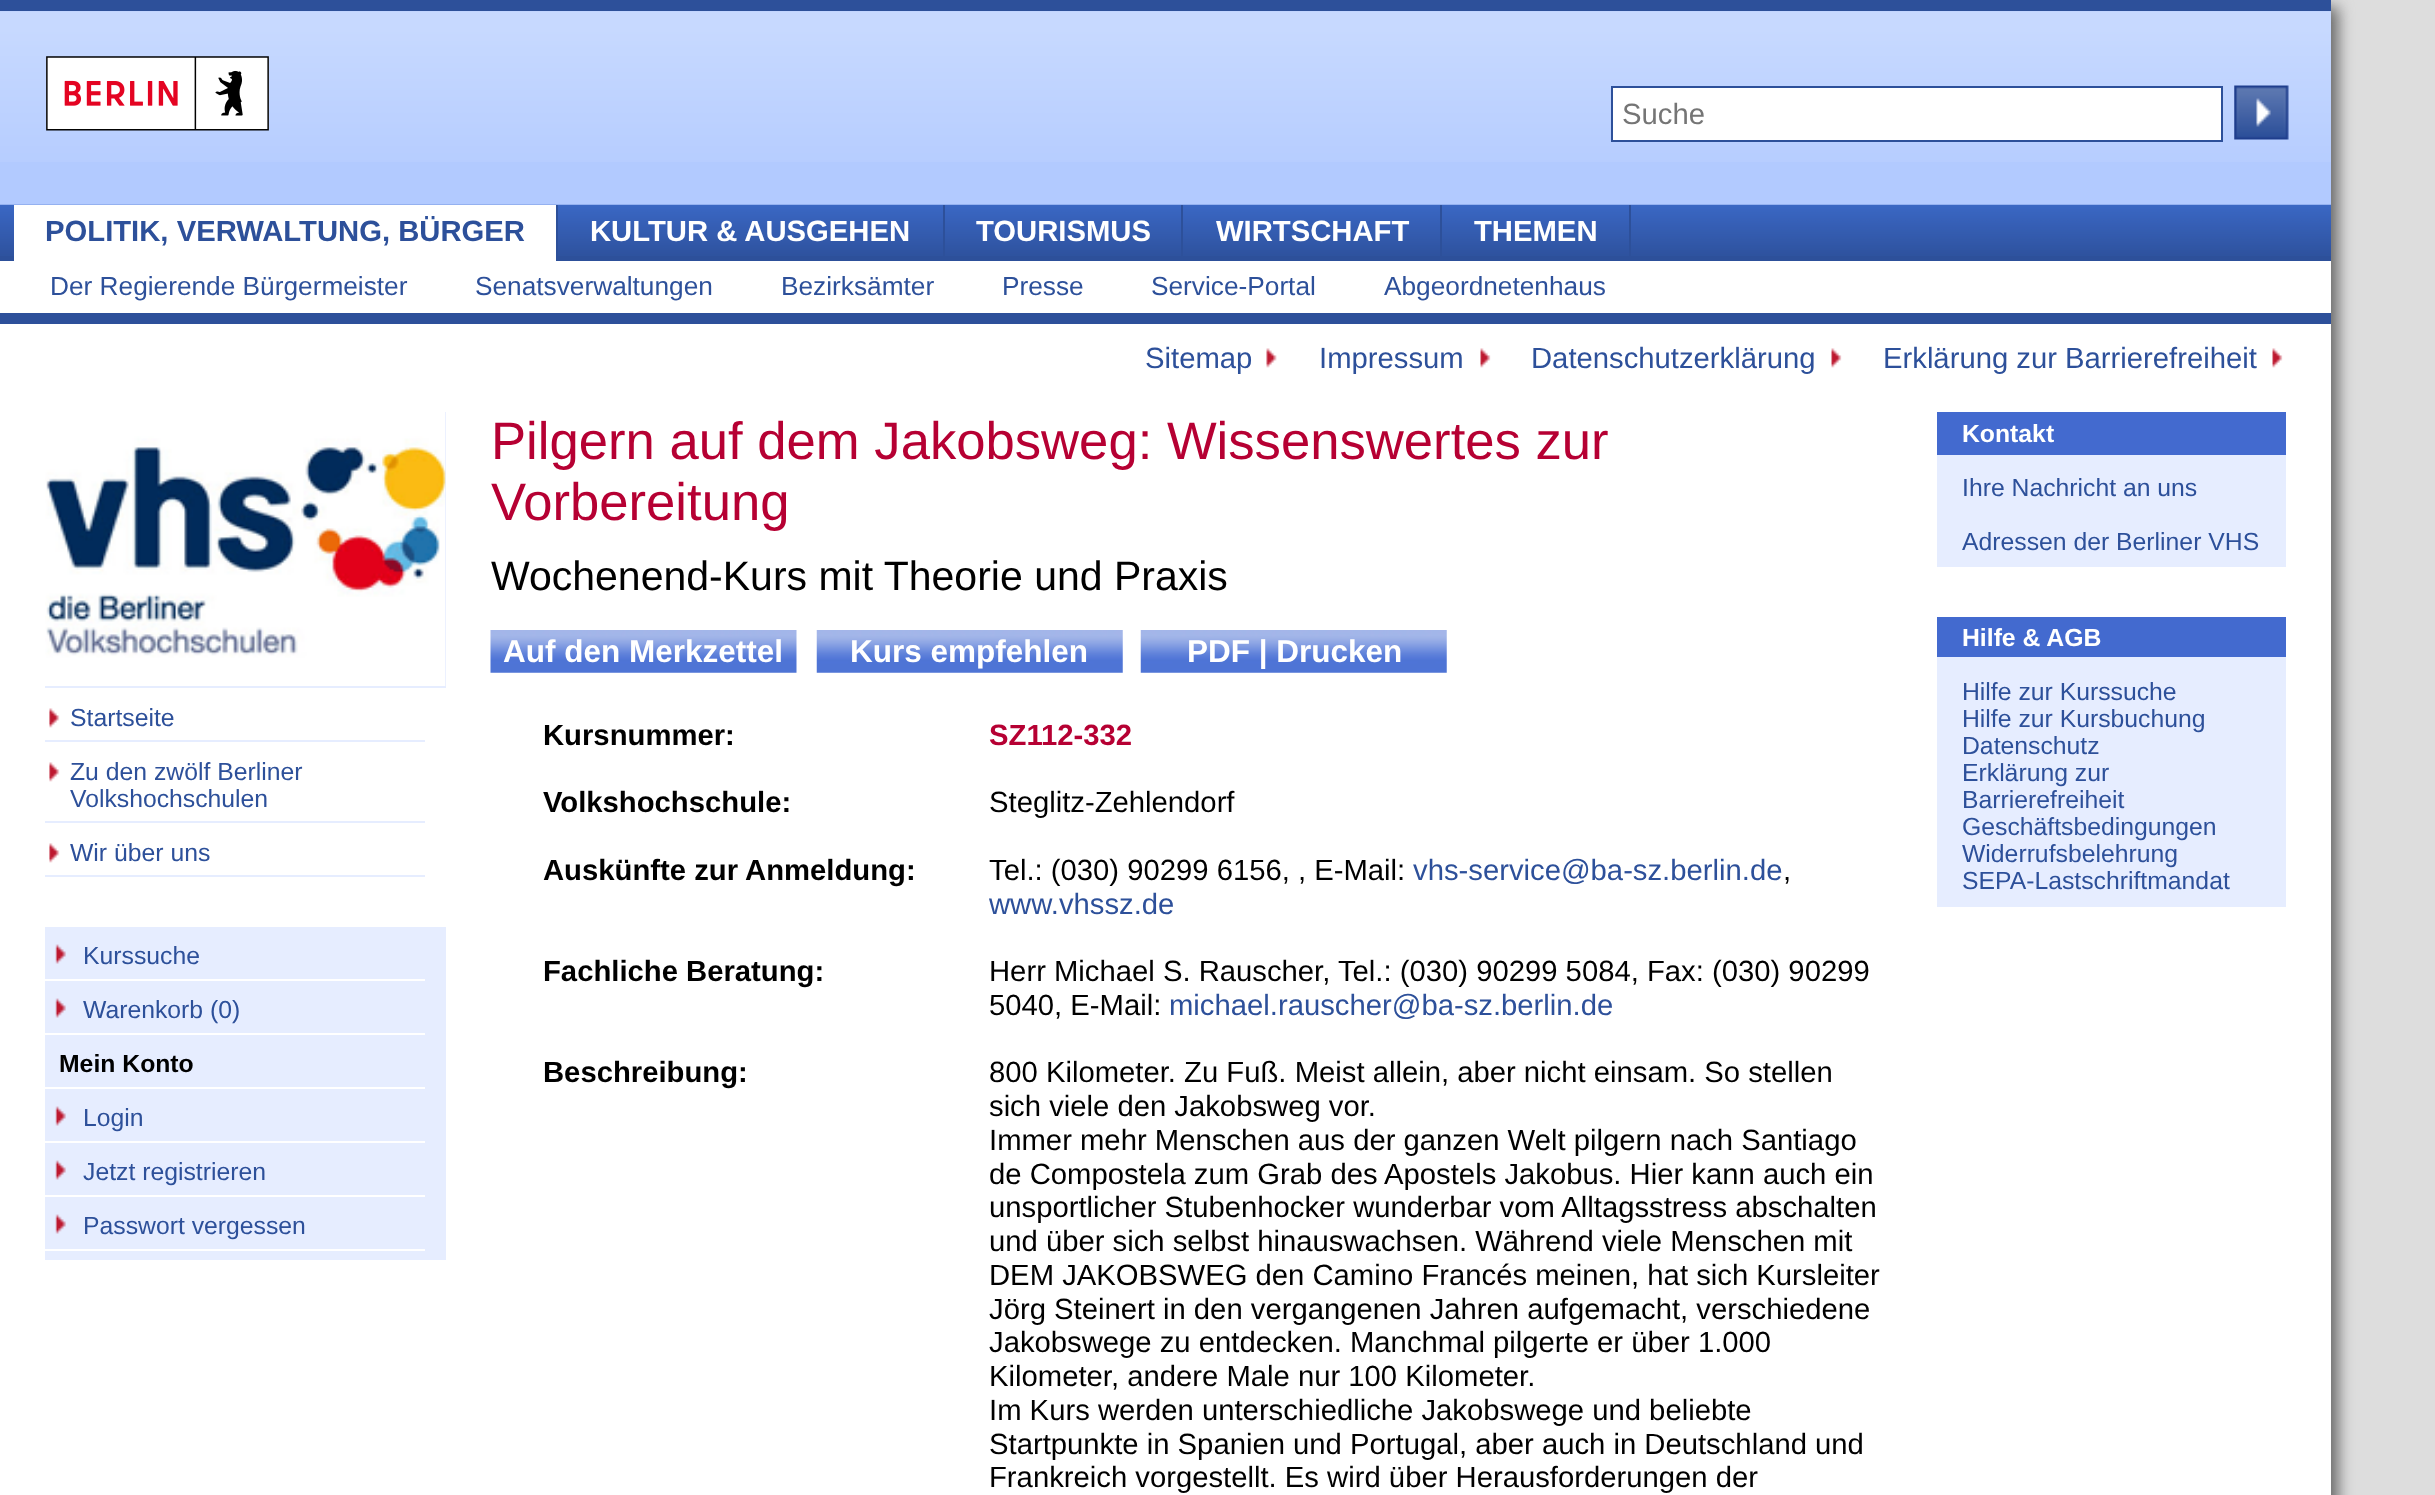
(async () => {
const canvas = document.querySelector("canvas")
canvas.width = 2435
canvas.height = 1495
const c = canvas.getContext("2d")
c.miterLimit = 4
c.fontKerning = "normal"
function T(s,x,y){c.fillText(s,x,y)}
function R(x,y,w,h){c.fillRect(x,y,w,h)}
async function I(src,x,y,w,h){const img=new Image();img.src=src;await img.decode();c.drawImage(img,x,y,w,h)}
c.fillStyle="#ddd"
R(0,0,2435,1495)
c.fillStyle="#666"
c.filter="blur(7.5px)"
c.beginPath()
c.rect(7,7,2331,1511)
c.fill()
c.filter="none"
c.fillStyle="#fff"
R(0,324,2331,1171)
c.fillStyle="#b2caff"
R(0,11,2331,194)
await I("1.png",0,11,2331,151)
c.fillStyle="#2d509a"
R(0,0,2331,11)
await I("2.png",46,56,223,75)
c.fillStyle="#fff"
c.beginPath()
c.rect(1612,87,610,54)
c.fill()
c.strokeStyle="#2d509a"
c.lineWidth=2
c.stroke()
c.font="29.25px Liberation Sans"
c.fillStyle="#757575"
T("Suche",1622,124)
await I("3.png",2234,85,55,55)
c.fillStyle="#2d509a"
R(0,256,2331,5)
await I("4.png",0,204,2331,52)
c.fillStyle="#fff"
R(14,205,542,56)
c.fillStyle="#2d509a"
R(556,205,2,56)
c.font="bold 29.25px Liberation Sans"
T("POLITIK, VERWALTUNG, BÜRGER",45,241)
c.fillStyle="#fff"
R(0,261,2331,52)
c.fillStyle="#2d509a"
R(0,313,2331,11)
c.font="26.25px Liberation Sans"
T("Der Regierende Bürgermeister",50,295)
T("Senatsverwaltungen",475,295)
T("Bezirksämter",781,295)
T("Presse",1002,295)
T("Service-Portal",1151,295)
T("Abgeordnetenhaus",1384,295)
R(943,205,2,56)
c.font="bold 29.25px Liberation Sans"
c.fillStyle="#fff"
T("KULTUR & AUSGEHEN",590,241)
c.fillStyle="#2d509a"
R(1181,205,2,56)
c.fillStyle="#fff"
T("TOURISMUS",976,241)
c.fillStyle="#2d509a"
R(1440,205,2,56)
c.fillStyle="#fff"
T("WIRTSCHAFT",1216,241)
c.fillStyle="#2d509a"
R(1629,205,2,56)
c.fillStyle="#fff"
T("THEMEN",1474,241)
await I("5.png",1266,348,11,20)
c.font="29.25px Liberation Sans"
c.fillStyle="#2d509a"
T("Sitemap",1145,368)
await I("6.png",1480,348,11,20)
T("Impressum",1319,368)
await I("6.png",1831,348,11,20)
T("Datenschutzerklärung",1531,368)
await I("6.png",2272,348,11,20)
T("Erklärung zur Barrierefreiheit",1883,368)
c.font="52.65px Liberation Sans"
c.fillStyle="#b60033"
T("Pilgern auf dem Jakobsweg: Wissenswertes zur",491,459)
T("Vorbereitung",491,520)
c.font="41px Liberation Sans"
c.fillStyle="#000"
T("Wochenend-Kurs mit Theorie und Praxis",491,590)
await I("7.png",490,630,307,43)
c.font="bold 31.5px Liberation Sans"
c.fillStyle="#fff"
T("Auf den Merkzettel",503,662)
await I("8.png",816,630,307,43)
T("Kurs empfehlen",850,662)
await I("9.png",1140,630,307,43)
T("PDF | Drucken",1187,662)
c.font="bold 29.25px Liberation Sans"
c.fillStyle="#000"
T("Kursnummer:",543,745)
c.fillStyle="#b60033"
T("SZ112-332",989,745)
c.fillStyle="#000"
T("Volkshochschule:",543,812)
c.font="29.25px Liberation Sans"
T("Steglitz-Zehlendorf",989,812)
c.font="bold 29.25px Liberation Sans"
T("Auskünfte zur Anmeldung:",543,880)
c.font="29.25px Liberation Sans"
T("Tel.: (030) 90299 6156, , E-Mail:",989,880)
c.fillStyle="#2d509a"
T("vhs-service@ba-sz.berlin.de",1413,880)
c.fillStyle="#000"
T(",",1783,880)
c.fillStyle="#2d509a"
T("www.vhssz.de",989,914)
c.font="bold 29.25px Liberation Sans"
c.fillStyle="#000"
T("Fachliche Beratung:",543,981)
c.font="29.25px Liberation Sans"
T("Herr Michael S. Rauscher, Tel.: (030) 90299 5084, Fax: (030) 90299",989,981)
T("5040, E-Mail:",989,1015)
c.fillStyle="#2d509a"
T("michael.rauscher@ba-sz.berlin.de",1169,1015)
c.font="bold 29.25px Liberation Sans"
c.fillStyle="#000"
T("Beschreibung:",543,1082)
c.font="29.25px Liberation Sans"
T("800 Kilometer. Zu Fuß. Meist allein, aber nicht einsam. So stellen",989,1082)
T("sich viele den Jakobsweg vor.",989,1116)
T("Immer mehr Menschen aus der ganzen Welt pilgern nach Santiago",989,1150)
T("de Compostela zum Grab des Apostels Jakobus. Hier kann auch ein",989,1184)
T("unsportlicher Stubenhocker wunderbar vom Alltagsstress abschalten",989,1217)
T("und über sich selbst hinauswachsen. Während viele Menschen mit",989,1251)
T("DEM JAKOBSWEG den Camino Francés meinen, hat sich Kursleiter",989,1285)
T("Jörg Steinert in den vergangenen Jahren aufgemacht, verschiedene",989,1319)
T("Jakobswege zu entdecken. Manchmal pilgerte er über 1.000",989,1352)
T("Kilometer, andere Male nur 100 Kilometer.",989,1386)
T("Im Kurs werden unterschiedliche Jakobswege und beliebte",989,1420)
T("Startpunkte in Spanien und Portugal, aber auch in Deutschland und",989,1454)
T("Frankreich vorgestellt. Es wird über Herausforderungen der",989,1487)
c.fillStyle="#e6edff"
R(1937,455,349,112)
c.fillStyle="#436acf"
R(1937,412,349,43)
c.font="bold 24.75px Liberation Sans"
c.fillStyle="#fff"
T("Kontakt",1962,442)
c.font="24.75px Liberation Sans"
c.fillStyle="#2d509a"
T("Ihre Nachricht an uns",1962,496)
T("Adressen der Berliner VHS",1962,550)
c.fillStyle="#e6edff"
R(1937,657,349,250)
c.fillStyle="#436acf"
R(1937,617,349,40)
c.font="bold 24.75px Liberation Sans"
c.fillStyle="#fff"
T("Hilfe & AGB",1962,646)
c.font="24.75px Liberation Sans"
c.fillStyle="#2d509a"
T("Hilfe zur Kurssuche",1962,700)
T("Hilfe zur Kursbuchung",1962,727)
T("Datenschutz",1962,754)
T("Erklärung zur",1962,781)
T("Barrierefreiheit",1962,808)
T("Geschäftsbedingungen",1962,835)
T("Widerrufsbelehrung",1962,862)
T("SEPA-Lastschriftmandat",1962,889)
c.fillStyle="#e6edff"
R(445,412,1,274)
await I("10.png",45,412,401,274)
R(45,686,401,2)
await I("11.png",49,708,11,20)
R(45,740,380,2)
c.fillStyle="#2d509a"
T("Startseite",70,726)
await I("11.png",49,762,11,20)
c.fillStyle="#e6edff"
R(45,821,380,2)
c.fillStyle="#2d509a"
T("Zu den zwölf Berliner",70,780)
T("Volkshochschulen",70,807)
await I("11.png",49,843,11,20)
c.fillStyle="#e6edff"
R(45,875,380,2)
c.fillStyle="#2d509a"
T("Wir über uns",70,861)
c.fillStyle="#e6edff"
R(45,927,401,333)
await I("12.png",55,944,11,20)
c.fillStyle="#fff"
R(45,979,380,2)
c.fillStyle="#2d509a"
T("Kurssuche",83,964)
await I("12.png",55,998,11,20)
c.fillStyle="#fff"
R(45,1033,380,2)
c.fillStyle="#2d509a"
T("Warenkorb (0)",83,1018)
c.fillStyle="#fff"
R(45,1087,380,2)
c.font="bold 24.75px Liberation Sans"
c.fillStyle="#000"
T("Mein Konto",59,1072)
await I("12.png",55,1106,11,20)
c.fillStyle="#fff"
R(45,1141,380,2)
c.font="24.75px Liberation Sans"
c.fillStyle="#2d509a"
T("Login",83,1126)
await I("13.png",55,1160,11,20)
c.fillStyle="#fff"
R(45,1195,380,2)
c.fillStyle="#2d509a"
T("Jetzt registrieren",83,1180)
await I("12.png",55,1214,11,20)
c.fillStyle="#fff"
R(45,1249,380,2)
c.fillStyle="#2d509a"
T("Passwort vergessen",83,1234)
})()
